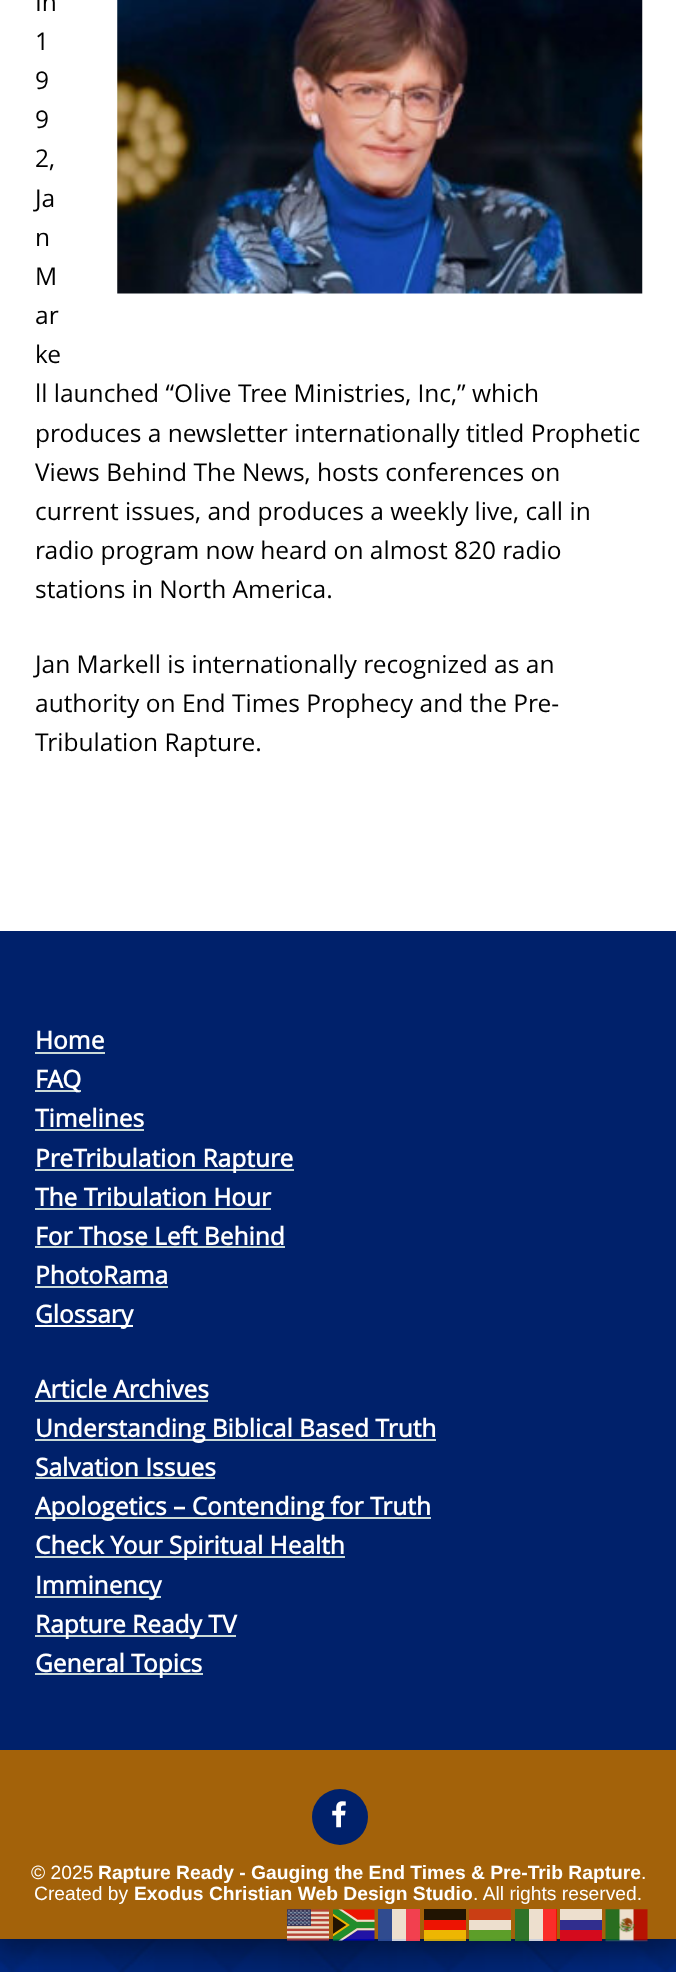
(async () => {
const canvas = document.querySelector("canvas")
canvas.width = 676
canvas.height = 1972
const c = canvas.getContext("2d")
c.miterLimit = 4
c.fontKerning = "normal"
function T(s,x,y){c.fillText(s,x,y)}
function R(x,y,w,h){c.fillRect(x,y,w,h)}
async function I(src,x,y,w,h){const img=new Image();img.src=src;await img.decode();c.drawImage(img,x,y,w,h)}
c.fillStyle="#fff"
R(0,0,676,1972)
await I("1.png",0,1939,676,33)
c.fillStyle="#00000080"
c.filter="blur(17.5px)"
c.beginPath()
c.rect(-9,-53,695,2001)
c.fill()
c.filter="none"
c.fillStyle="#fff"
R(0,0,676,931)
c.font="24.5px Open Sans"
c.fillStyle="#000"
T("In",35,11)
await I("2.png",117,0,526,294)
T("1",35,50)
T("9",35,89)
T("9",35,128)
T("2,",35,167)
T("Ja",35,207)
T("n",35,246)
T("M",35,285)
T("ar",35,324)
T("ke",35,363)
T("ll launched “Olive Tree Ministries, Inc,” which",35,402)
T("produces a newsletter internationally titled Prophetic",35,442)
T("Views Behind The News, hosts conferences on",35,481)
T("current issues, and produces a weekly live, call in",35,520)
T("radio program now heard on almost 820 radio",35,559)
T("stations in North America.",35,598)
T("Jan Markell is internationally recognized as an",35,673)
T("authority on End Times Prophecy and the Pre-",35,712)
T("Tribulation Rapture.",35,751)
c.fillStyle="#00216b"
R(0,931,676,819)
c.font="bold 24.5px Open Sans"
c.fillStyle="#fff"
T("Home",35,1049)
c.fillStyle="#cadad7"
R(35,1052,70,2)
R(35,1090,46,2)
c.fillStyle="#fff"
T("FAQ",35,1088)
T("Timelines",35,1127)
c.fillStyle="#cadad7"
R(35,1129,109,2)
R(35,1169,259,2)
c.fillStyle="#fff"
T("PreTribulation Rapture",35,1167)
T("The Tribulation Hour",35,1206)
c.fillStyle="#cadad7"
R(35,1208,236,2)
c.fillStyle="#fff"
T("For Those Left Behind",35,1245)
c.fillStyle="#cadad7"
R(35,1246,250,2)
c.fillStyle="#fff"
T("PhotoRama",35,1284)
c.fillStyle="#cadad7"
R(35,1286,133,2)
c.fillStyle="#fff"
R(35,1325,98,2)
T("Glossary",35,1323)
T("Article Archives",35,1398)
c.fillStyle="#cadad7"
R(35,1400,173,2)
R(35,1439,401,2)
c.fillStyle="#fff"
T("Understanding Biblical Based Truth",35,1437)
T("Salvation Issues",35,1476)
c.fillStyle="#cadad7"
R(35,1477,180,2)
R(35,1517,396,2)
c.fillStyle="#fff"
T("Apologetics – Contending for Truth",35,1515)
c.fillStyle="#cadad7"
R(35,1556,310,2)
c.fillStyle="#fff"
T("Check Your Spiritual Health",35,1554)
c.fillStyle="#cadad7"
R(35,1596,126,2)
c.fillStyle="#fff"
T("Imminency",35,1594)
c.fillStyle="#cadad7"
R(35,1635,201,2)
c.fillStyle="#fff"
T("Rapture Ready TV",35,1633)
c.fillStyle="#cadad7"
R(35,1673,168,2)
c.fillStyle="#fff"
T("General Topics",35,1672)
c.fillStyle="#a3620a"
R(0,1750,676,189)
c.fillStyle="#00216b"
c.beginPath()
c.arc(340,1817,28,0,7)
c.fill()
await I("3.png",332,1801,14,27)
c.font="19.25px Liberation Sans"
c.fillStyle="#fff"
T("© 2025",31,1879)
c.font="bold 19.25px Liberation Sans"
T("Rapture Ready - Gauging the End Times & Pre-Trib Rapture",98,1879)
c.font="19.25px Liberation Sans"
T(".",641,1879)
T("Created by",34,1900)
c.font="bold 19.25px Liberation Sans"
T("Exodus Christian Web Design Studio",134,1900)
c.font="19.25px Liberation Sans"
T(". All rights reserved.",473,1900)
await I("4.png",287,1909,42,32)
await I("5.png",333,1909,42,32)
c.fillStyle="#ffffffcc"
R(378,1909,42,32)
c.fillStyle="#00267fcc"
R(378,1909,14,32)
c.fillStyle="#f31830cc"
R(406,1909,14,32)
c.fillStyle="#211402"
R(424,1909,42,11)
c.fillStyle="#ca3e14"
R(469,1909,42,11)
c.fillStyle="#ffffffcc"
R(515,1909,41,32)
c.fillStyle="#ed1402"
R(424,1920,42,10)
c.fillStyle="#ffffffcc"
R(469,1920,42,21)
c.fillStyle="#005700cc"
R(515,1909,14,32)
c.fillStyle="#fc0000cc"
R(543,1909,14,32)
c.fillStyle="#ffffffcc"
R(560,1909,42,32)
await I("6.png",605,1909,43,33)
c.fillStyle="#ffcc00cc"
R(424,1930,42,11)
c.fillStyle="#388d00cc"
R(469,1930,42,11)
c.fillStyle="#01017ecc"
R(560,1920,42,21)
c.fillStyle="#fe0101cc"
R(560,1930,42,11)
})()
